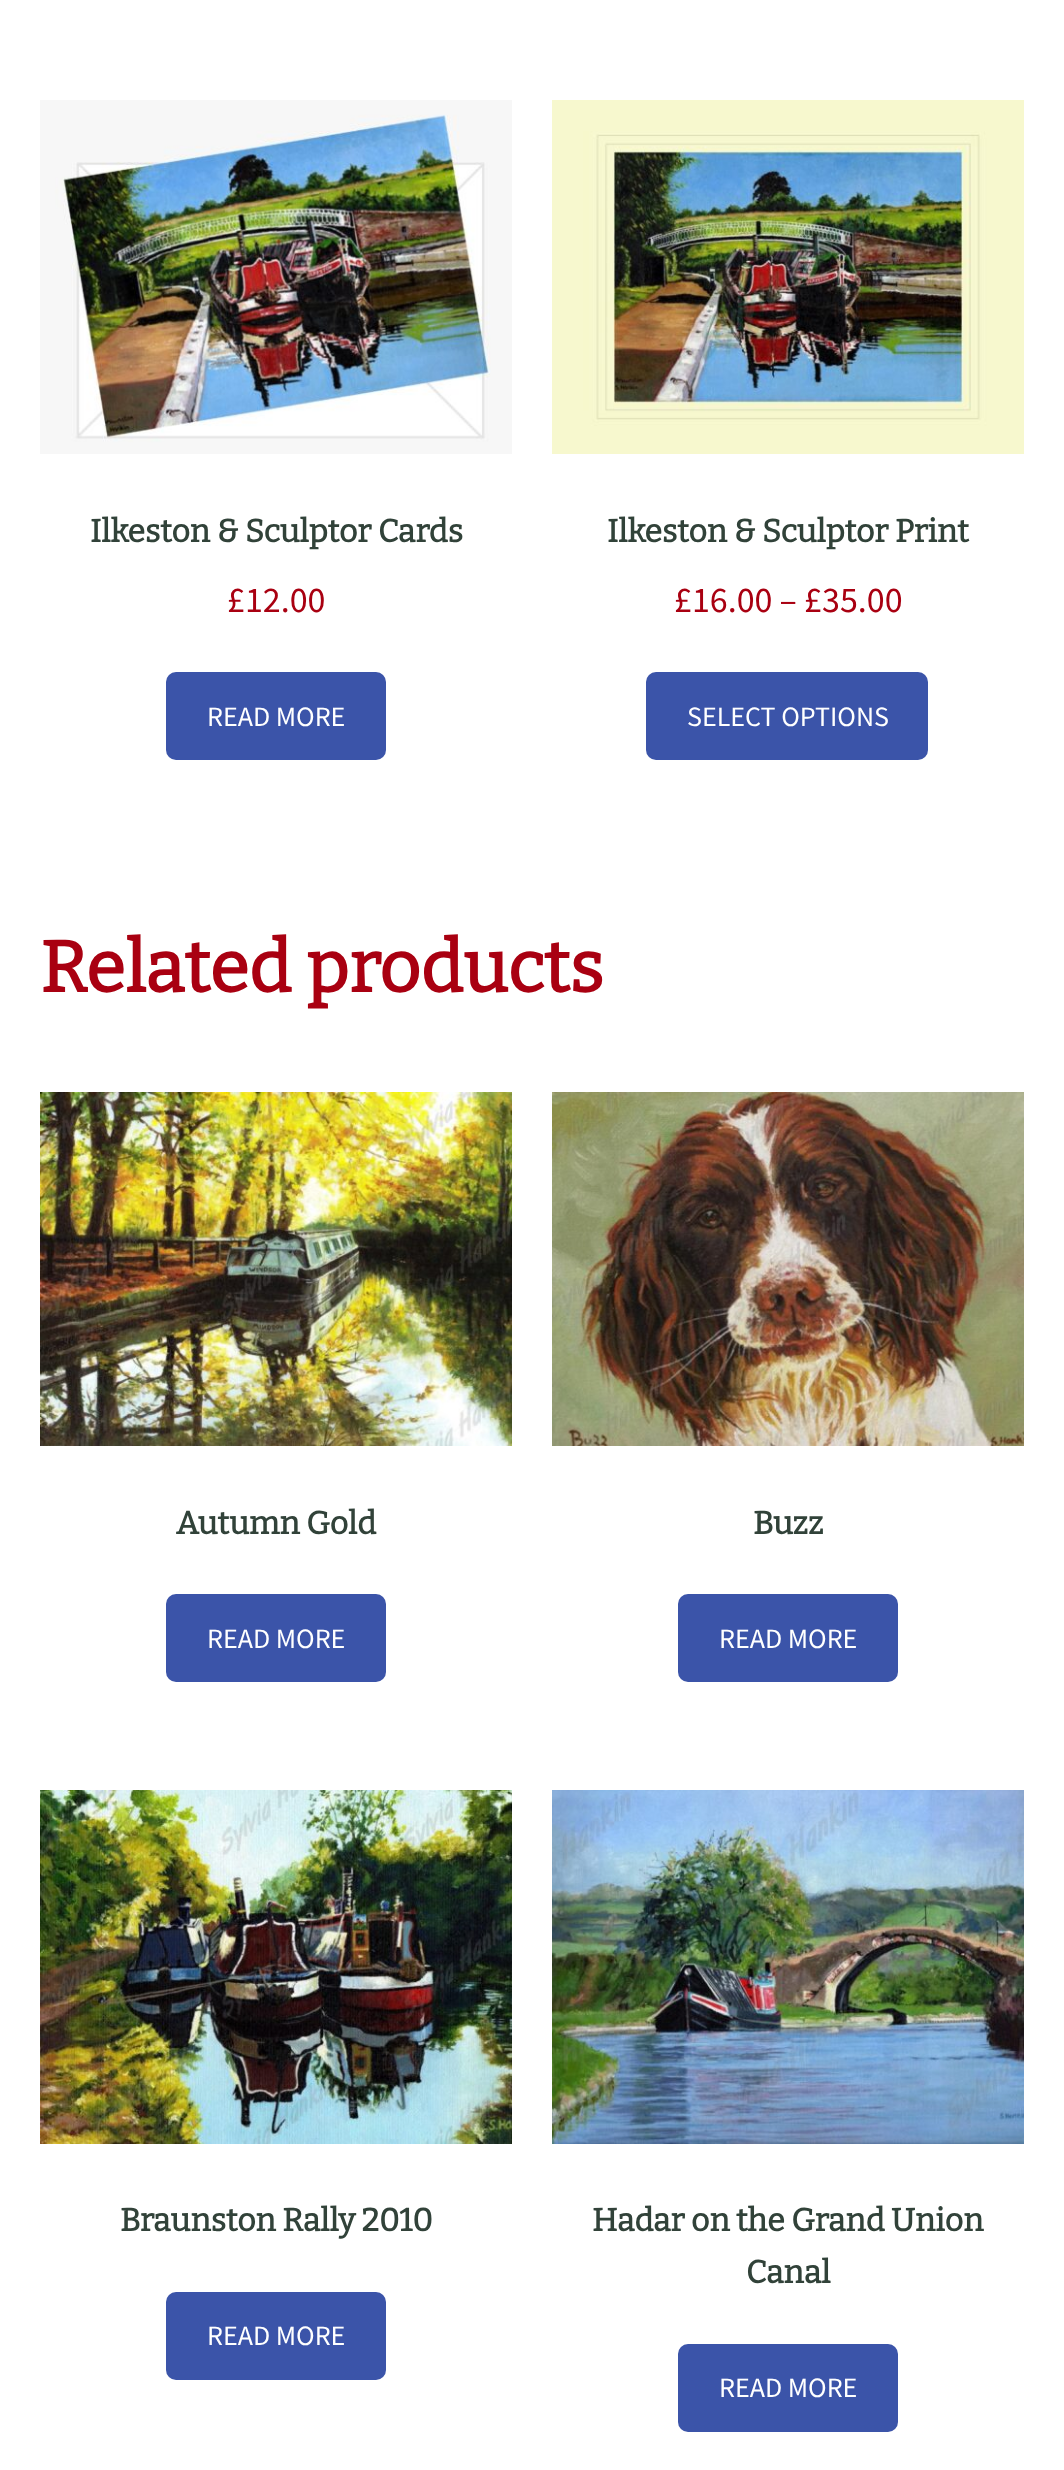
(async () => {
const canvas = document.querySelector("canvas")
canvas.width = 1064
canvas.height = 2470
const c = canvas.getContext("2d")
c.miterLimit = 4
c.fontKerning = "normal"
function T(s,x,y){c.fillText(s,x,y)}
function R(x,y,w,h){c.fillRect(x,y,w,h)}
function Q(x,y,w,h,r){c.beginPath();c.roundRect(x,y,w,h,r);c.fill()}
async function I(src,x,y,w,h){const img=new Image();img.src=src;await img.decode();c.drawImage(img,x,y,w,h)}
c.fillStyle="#fff"
R(0,0,1064,2470)
await I("1.png",40,100,472,354)
c.font="bold 32px Bitter"
c.fillStyle="#314239"
T("Ilkeston & Sculptor Cards",90,542)
c.font="36px Source Sans Pro"
c.fillStyle="#a90011"
T("£12.00",227,612)
c.fillStyle="#3b54a9"
Q(166,672,220,88,10)
c.font="28px Source Sans Pro"
c.fillStyle="#fff"
T("READ MORE",207,726)
await I("2.png",552,100,472,354)
c.font="bold 32px Bitter"
c.fillStyle="#314239"
T("Ilkeston & Sculptor Print",607,542)
c.font="36px Source Sans Pro"
c.fillStyle="#a90011"
T("£16.00 – £35.00",674,612)
c.fillStyle="#3b54a9"
Q(646,672,282,88,10)
c.font="28px Source Sans Pro"
c.fillStyle="#fff"
T("SELECT OPTIONS",687,726)
c.font="bold 72px Bitter"
c.fillStyle="#a90011"
T("Related products",40,992)
await I("3.png",40,1092,472,354)
c.font="bold 32px Bitter"
c.fillStyle="#314239"
T("Autumn Gold",176,1534)
c.fillStyle="#3b54a9"
Q(166,1594,220,88,10)
c.font="28px Source Sans Pro"
c.fillStyle="#fff"
T("READ MORE",207,1648)
await I("4.png",552,1092,472,354)
c.font="bold 32px Bitter"
c.fillStyle="#314239"
T("Buzz",753,1534)
c.fillStyle="#3b54a9"
Q(678,1594,220,88,10)
c.font="28px Source Sans Pro"
c.fillStyle="#fff"
T("READ MORE",719,1648)
await I("5.png",40,1790,472,354)
c.font="bold 32px Bitter"
c.fillStyle="#314239"
T("Braunston Rally 2010",120,2231)
c.fillStyle="#3b54a9"
Q(166,2292,220,88,10)
c.font="28px Source Sans Pro"
c.fillStyle="#fff"
T("READ MORE",207,2345)
await I("6.png",552,1790,472,354)
c.font="bold 32px Bitter"
c.fillStyle="#314239"
T("Hadar on the Grand Union",592,2231)
T("Canal",746,2283)
c.fillStyle="#3b54a9"
Q(678,2344,220,88,10)
c.font="28px Source Sans Pro"
c.fillStyle="#fff"
T("READ MORE",719,2397)
})()
